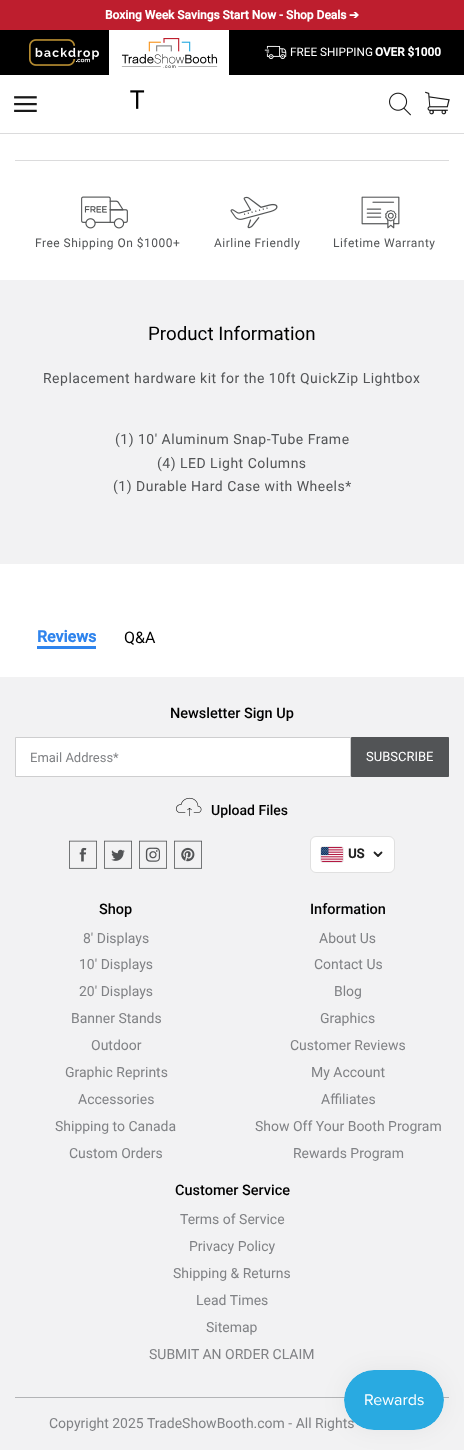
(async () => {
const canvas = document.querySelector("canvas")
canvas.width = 464
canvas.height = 1450
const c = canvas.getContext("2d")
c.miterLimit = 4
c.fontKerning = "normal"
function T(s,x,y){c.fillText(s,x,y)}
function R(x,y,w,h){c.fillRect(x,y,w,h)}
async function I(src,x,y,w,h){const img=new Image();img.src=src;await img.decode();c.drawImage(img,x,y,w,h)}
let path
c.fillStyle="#fff"
R(0,0,464,1450)
c.fillStyle="#dbdbdc"
R(0,133,464,1)
c.fillStyle="#be1e2e"
R(0,0,464,30)
c.font="bold 12px Roboto"
c.fillStyle="#fff"
T("Boxing Week Savings Start Now - Shop Deals",105,19)
c.font="bold 12px DejaVu Sans"
T("➔",349,19)
c.fillStyle="#000"
R(0,30,464,45)
await I("1.png",29,39,70,27)
c.fillStyle="#fff"
R(109,30,120,45)
await I("2.png",121,38,97,30)
await I("3.png",264,45,23,14)
c.font="11.75px Roboto"
T("FREE SHIPPING",290,56)
c.font="bold 11.75px Roboto"
T("OVER $1000",375,56)
await I("4.png",14,96,23,16)
await I("5.png",130,90,15,19)
await I("6.png",389,92,22,24)
await I("7.png",425,91,25,24)
c.fillStyle="#dbdbdc"
R(15,160,434,1)
await I("8.png",81,196,47,33)
c.letterSpacing="0.5px"
c.font="12px Roboto"
c.fillStyle="#525456"
T("Free Shipping On $1000+",35,247)
await I("9.png",230,196,48,33)
T("Airline Friendly",214,247)
await I("10.png",361,196,39,33)
T("Lifetime Warranty",333,247)
c.fillStyle="#f2f2f3"
R(0,280,464,284)
c.letterSpacing="0px"
c.font="18.75px Roboto"
c.fillStyle="#000"
T("Product Information",148,340)
c.letterSpacing="0.5px"
c.font="14px Roboto"
c.fillStyle="#525456"
T("Replacement hardware kit for the 10ft QuickZip Lightbox",43,383)
T("(1) 10' Aluminum Snap-Tube Frame",115,444)
T("(4) LED Light Columns",157,468)
T("(1) Durable Hard Case with Wheels*",113,491)
c.fillStyle="#2f84ed"
R(37,646,59,3)
c.letterSpacing="0px"
c.font="bold 16px Roboto"
T("Reviews",37,642)
c.font="16px Roboto"
c.fillStyle="#000"
T("Q&A",124,643)
c.fillStyle="#f2f2f3"
R(0,677,464,773)
c.font="500 14.5px Roboto"
c.fillStyle="#000"
T("Newsletter Sign Up",170,718)
c.fillStyle="#fff"
c.beginPath()
c.rect(15.5,737.5,335,39)
c.fill()
c.strokeStyle="#cececf"
c.stroke()
c.font="13px Roboto"
c.fillStyle="#808285"
T("Email Address*",30,762)
c.fillStyle="#525456"
c.beginPath()
c.rect(351.5,737.5,97,39)
c.fill()
c.strokeStyle="#525456"
c.stroke()
c.fillStyle="#fff"
T("SUBSCRIBE",366,761)
await I("11.png",176,797,26,20)
c.font="500 14px Roboto"
c.fillStyle="#000"
T("Upload Files",211,815)
await I("12.png",69,840,28,29)
await I("13.png",104,840,28,29)
await I("14.png",139,840,28,29)
await I("15.png",174,840,28,29)
c.fillStyle="#fff"
c.beginPath()
c.roundRect(310.5,836.5,84,36,5.5)
c.fill()
c.strokeStyle="#e0e0e0"
c.stroke()
c.beginPath()
c.roundRect(320.5,846.5,23,16,2.5)
c.strokeStyle="#ebebeb"
c.stroke()
await I("16.png",321,847,22,15)
c.font="bold 13px Roboto"
c.fillStyle="#222"
T("US",348,858)
path = new Path2D("M374.5 852.5l3.5 3.5l3.5-3.5")
c.strokeStyle="#222"
c.lineWidth=1.8
c.lineCap="round"
c.lineJoin="round"
c.stroke(path)
c.font="500 14.5px Roboto"
c.fillStyle="#000"
T("Shop",99,914)
c.font="14px Roboto"
c.fillStyle="#808285"
T("8' Displays",83,943)
T("10' Displays",79,969)
T("20' Displays",79,996)
T("Banner Stands",71,1023)
T("Outdoor",91,1050)
T("Graphic Reprints",65,1077)
T("Accessories",78,1104)
T("Shipping to Canada",55,1131)
T("Custom Orders",69,1158)
c.font="500 14.5px Roboto"
c.fillStyle="#000"
T("Information",310,914)
c.font="14px Roboto"
c.fillStyle="#808285"
T("About Us",319,943)
T("Contact Us",314,969)
T("Blog",334,996)
T("Graphics",320,1023)
T("Customer Reviews",290,1050)
T("My Account",311,1077)
T("Affiliates",321,1104)
T("Show Off Your Booth Program",255,1131)
T("Rewards Program",293,1158)
c.font="500 14.5px Roboto"
c.fillStyle="#000"
T("Customer Service",175,1195)
c.font="14px Roboto"
c.fillStyle="#808285"
T("Terms of Service",180,1224)
T("Privacy Policy",189,1251)
T("Shipping & Returns",173,1278)
T("Lead Times",196,1305)
T("Sitemap",206,1332)
T("SUBMIT AN ORDER CLAIM",149,1359)
c.fillStyle="#b3b4b6"
R(15,1397,434,1)
c.fillStyle="#808285"
T("Copyright 2025 TradeShowBooth.com - All Rights",49,1428)
c.fillStyle="#0000000d"
c.filter="blur(12.5px)"
c.beginPath()
c.roundRect(344,1370,100,60,30)
c.fill()
c.filter="none"
await I("17.png",344,1370,100,60)
})()
